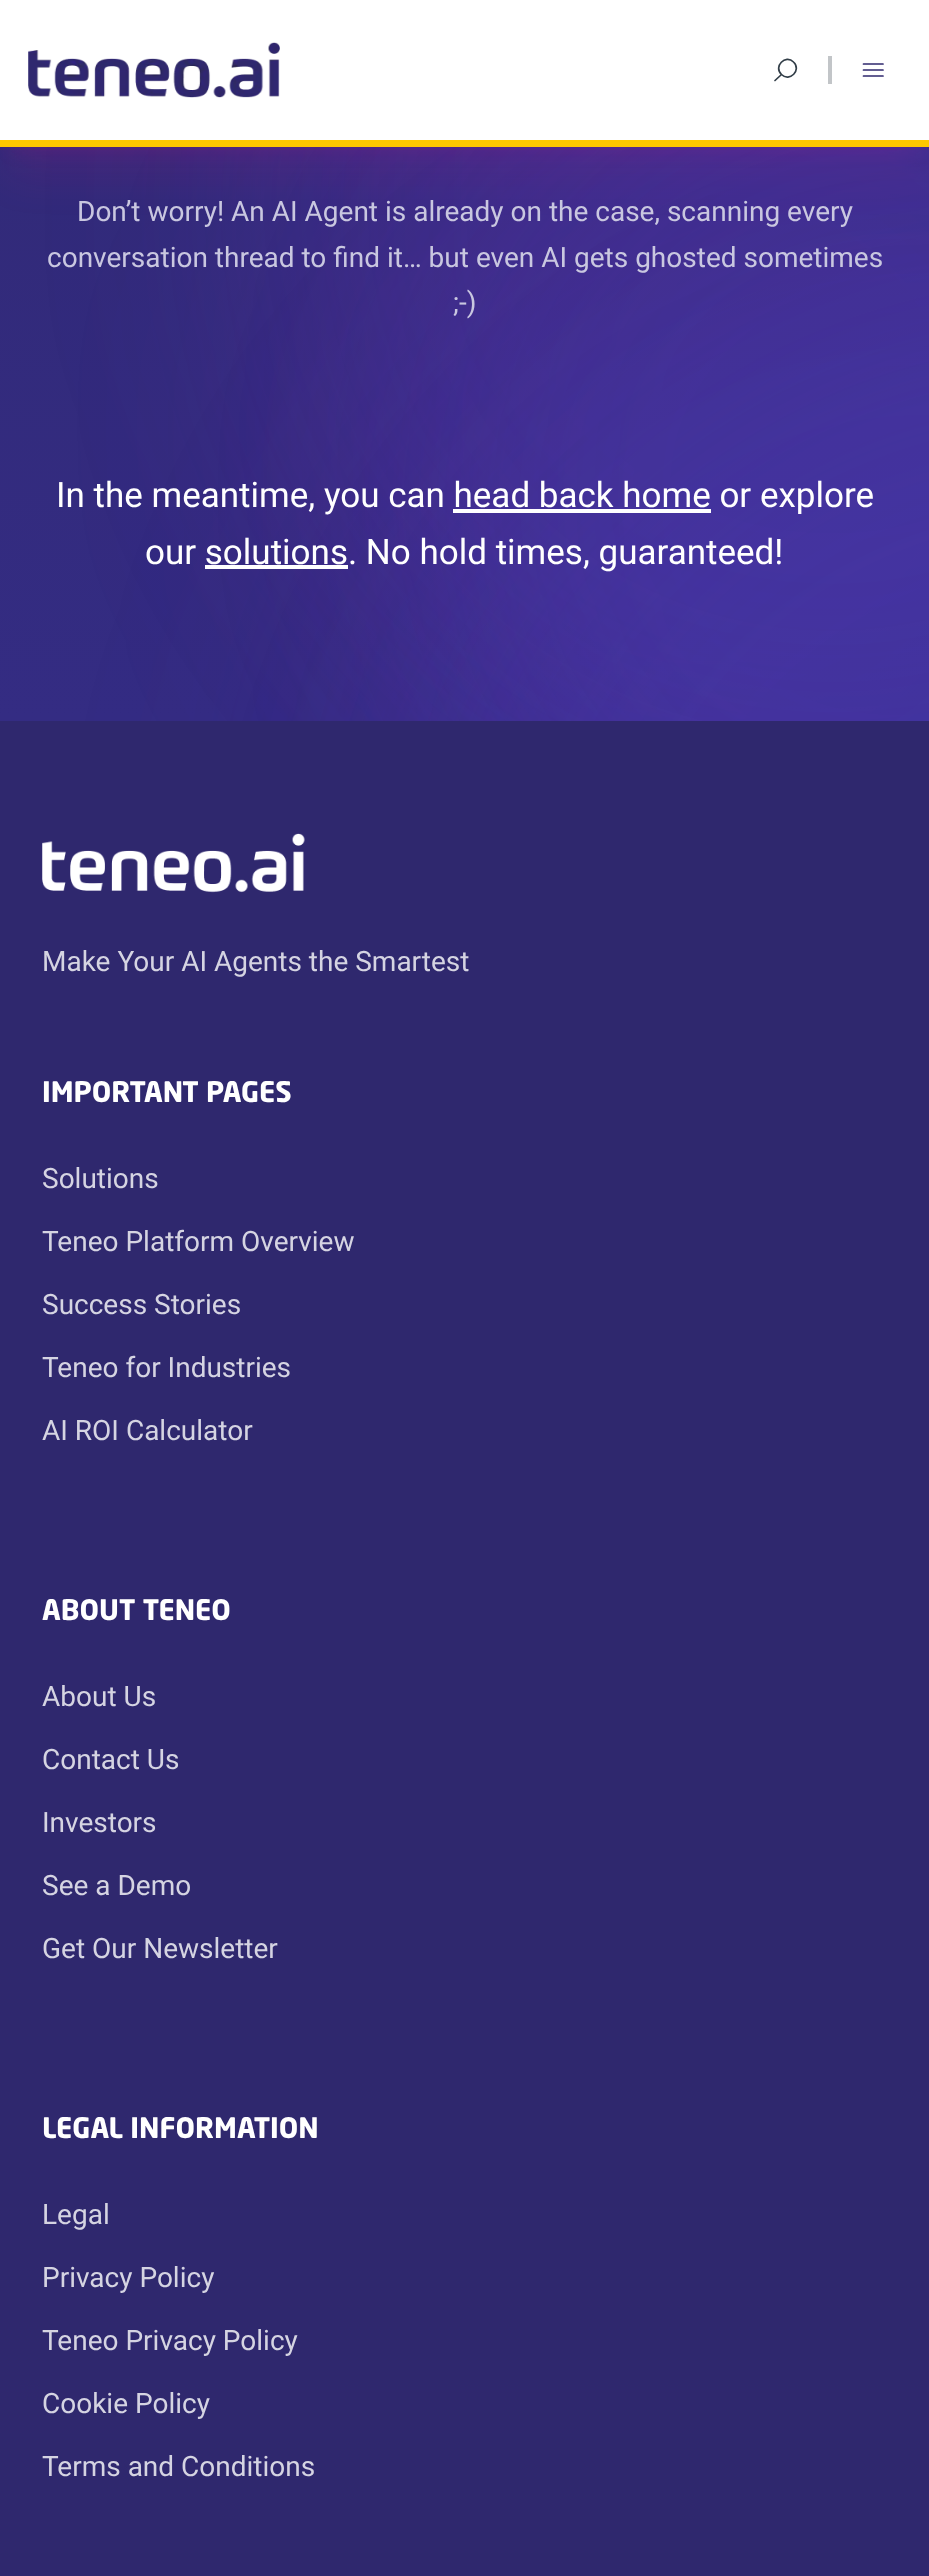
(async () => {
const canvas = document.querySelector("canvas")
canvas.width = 929
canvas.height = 2576
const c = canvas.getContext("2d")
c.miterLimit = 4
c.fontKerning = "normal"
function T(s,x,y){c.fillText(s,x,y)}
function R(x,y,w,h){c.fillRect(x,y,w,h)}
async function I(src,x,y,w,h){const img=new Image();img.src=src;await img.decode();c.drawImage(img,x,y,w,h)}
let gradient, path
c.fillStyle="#fff"
R(0,0,929,2576)
gradient = c.createLinearGradient(465,-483,465,721)
gradient.addColorStop(0,"#2f286e")
gradient.addColorStop(1,"#342c83")
c.fillStyle = gradient
R(0,147,929,574)
c.fillStyle="#ed078d1a"
c.filter="blur(9px)"
c.beginPath()
c.rect(11,25,908,126)
c.fill()
c.filter="none"
c.filter="blur(22px)"
c.beginPath()
c.rect(9,44,912,129)
c.fill()
c.filter="none"
c.fillStyle="#ed078d0f"
c.filter="blur(112px)"
c.beginPath()
c.roundRect(264,-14,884,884,442)
c.fill()
c.filter="none"
c.fillStyle="#5144cb14"
c.filter="blur(112px)"
c.beginPath()
c.roundRect(275,200,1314,1314,657)
c.fill()
c.filter="none"
c.fillStyle="#5144cb29"
c.filter="blur(112px)"
c.beginPath()
c.roundRect(268,-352,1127,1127,563.5)
c.fill()
c.filter="none"
c.fillStyle="#5144cb24"
c.filter="blur(112px)"
c.beginPath()
c.roundRect(418,322,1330,1332,665)
c.fill()
c.filter="none"
c.filter="blur(112px)"
c.beginPath()
c.roundRect(436,40,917,916,458)
c.fill()
c.filter="none"
c.fillStyle="#fff"
R(0,0,929,140)
c.fillStyle="#fec800"
R(0,140,929,7)
await I("1.png",28,42,252,56)
path = new Path2D("M775 80.5l6.5-6m0 0c8 8 20.5-4.5 12-12.5c-8-8-20.5 4.5-12 12.5z")
c.strokeStyle="#323e48"
c.lineWidth=1.7
c.lineCap="round"
c.lineJoin="round"
c.stroke(path)
c.fillStyle="#c2c5c8"
R(828,56,4,28)
path = new Path2D("M863.5 64h19.5m-19.5 6h19.5m-19.5 6h19.5")
c.strokeStyle="#2f286e"
c.stroke(path)
c.font="28px Roboto"
c.fillStyle="#c9c7e0"
T("Don’t worry! An AI Agent is already on the case, scanning every",77,221)
T("conversation thread to find it… but even AI gets ghosted sometimes",47,267)
T(";-)",453,312)
c.font="35px Roboto"
c.fillStyle="#fff"
T("In the meantime, you can head back home or explore",56,507)
R(453,509,258,4)
T("our solutions. No hold times, guaranteed!",145,564)
R(205,565,143,4)
c.fillStyle="#2f286e"
R(0,721,929,1855)
await I("2.png",42,833,263,60)
c.font="28px Roboto"
c.fillStyle="#d5d4e2"
T("Make Your AI Agents the Smartest",42,971)
c.font="bold 28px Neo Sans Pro"
c.fillStyle="#fff"
T("IMPORTANT PAGES",42,1102)
c.font="28px Roboto"
c.fillStyle="#d5d4e2"
T("Solutions",42,1188)
T("Teneo Platform Overview",42,1251)
T("Success Stories",42,1314)
T("Teneo for Industries",42,1377)
T("AI ROI Calculator",42,1440)
c.font="bold 28px Neo Sans Pro"
c.fillStyle="#fff"
T("ABOUT TENEO",42,1620)
c.font="28px Roboto"
c.fillStyle="#d5d4e2"
T("About Us",42,1706)
T("Contact Us",42,1769)
T("Investors",42,1832)
T("See a Demo",42,1895)
T("Get Our Newsletter",42,1958)
c.font="bold 28px Neo Sans Pro"
c.fillStyle="#fff"
T("LEGAL INFORMATION",42,2138)
c.font="28px Roboto"
c.fillStyle="#d5d4e2"
T("Legal",42,2224)
T("Privacy Policy",42,2287)
T("Teneo Privacy Policy",42,2350)
T("Cookie Policy",42,2413)
T("Terms and Conditions",42,2476)
})()
